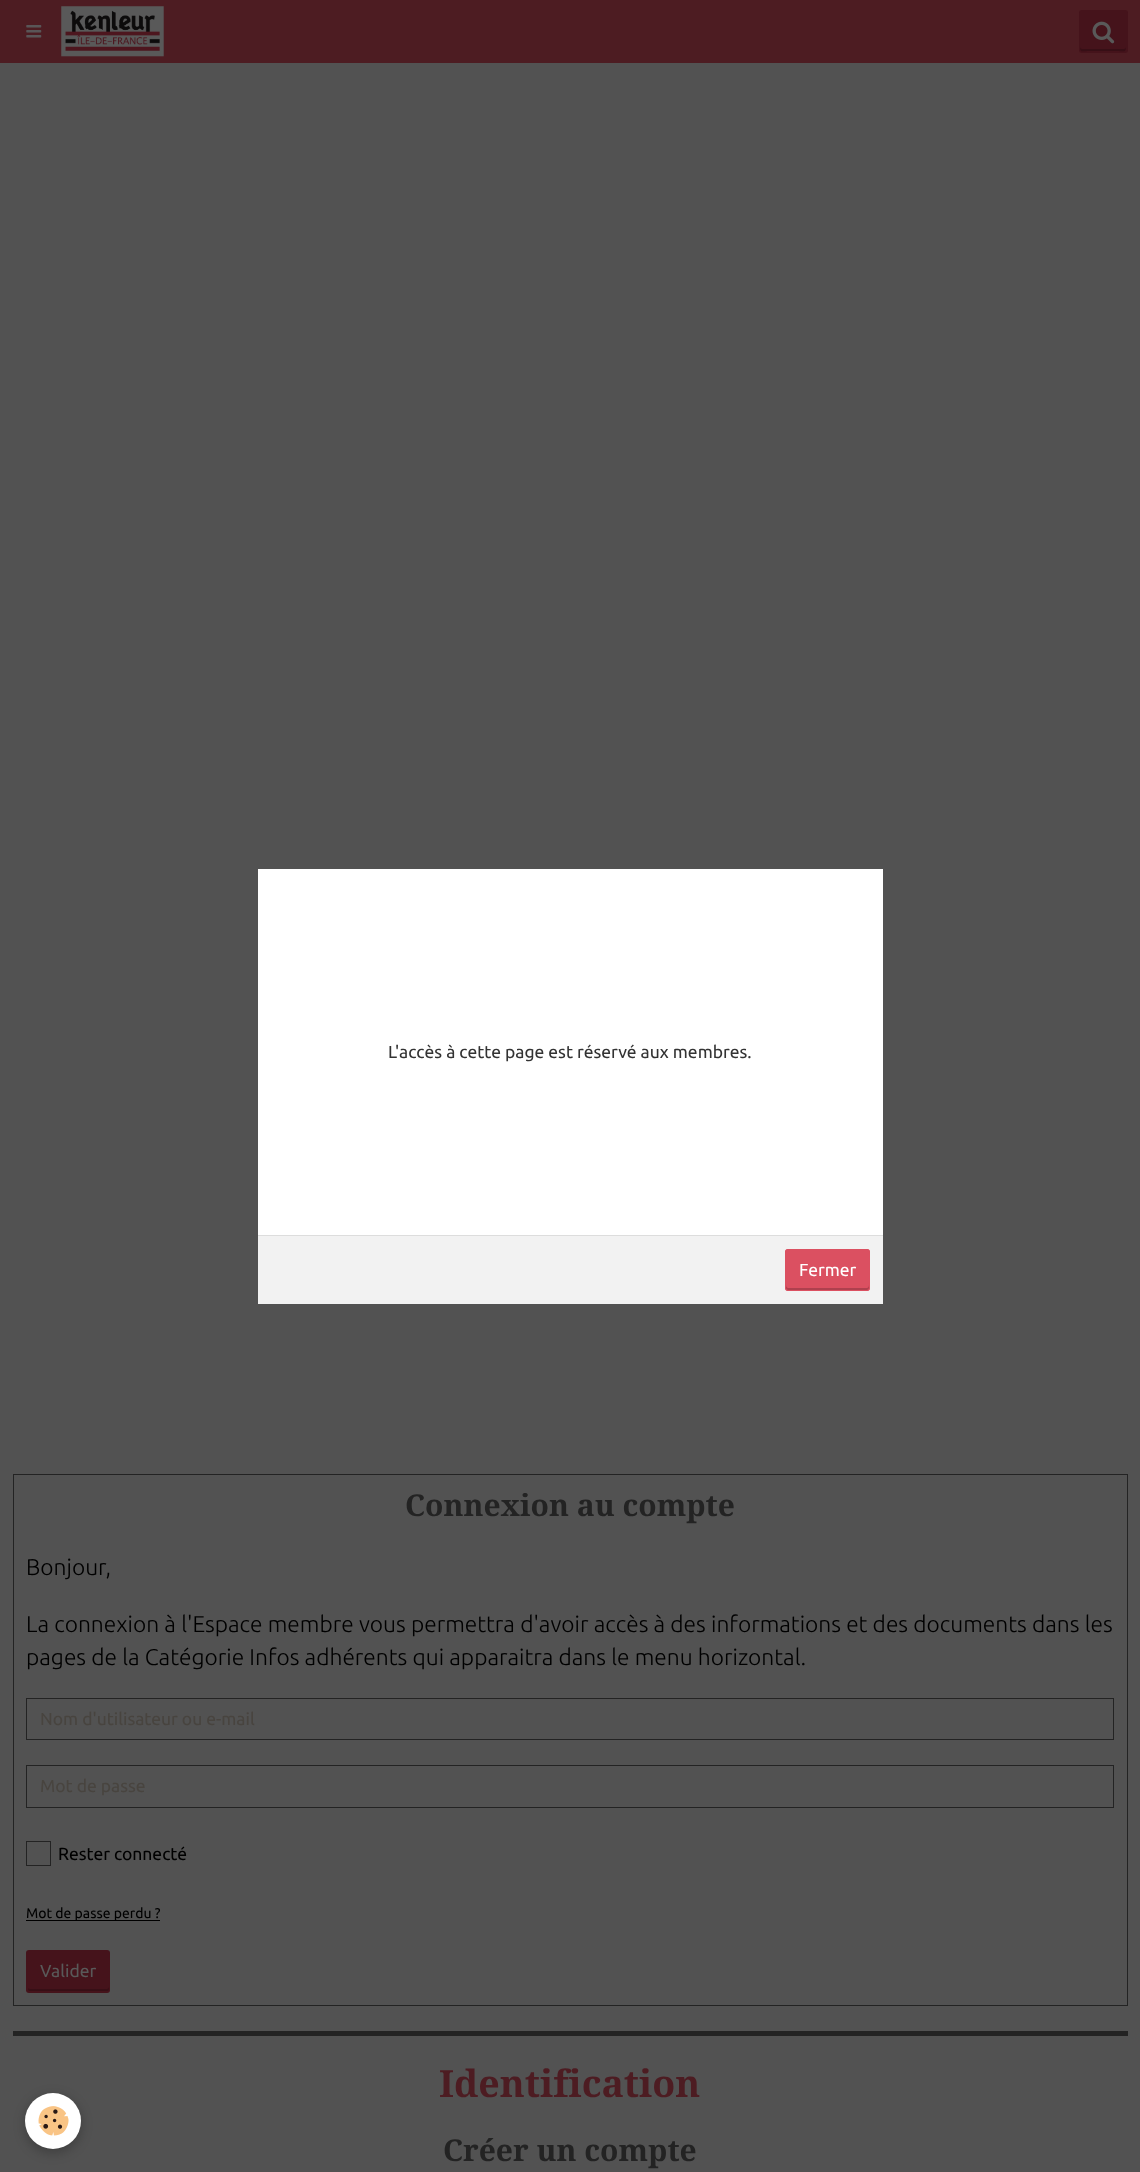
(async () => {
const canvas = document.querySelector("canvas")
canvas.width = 1140
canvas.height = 2172
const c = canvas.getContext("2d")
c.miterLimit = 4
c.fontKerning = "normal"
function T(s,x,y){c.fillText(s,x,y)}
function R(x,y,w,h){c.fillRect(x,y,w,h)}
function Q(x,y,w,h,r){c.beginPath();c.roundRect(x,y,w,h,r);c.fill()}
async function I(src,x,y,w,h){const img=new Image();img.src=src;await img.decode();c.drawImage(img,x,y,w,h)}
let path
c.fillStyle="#525252"
R(0,0,1140,2172)
c.fillStyle="#4d1c22"
R(0,0,1140,63)
await I("1.png",26,25,16,13)
await I("2.png",61,6,103,51)
c.fillStyle="#45131b"
Q(1079,10,49,43,3)
c.fillStyle="#370f16"
path = new Path2D("M1080 47c0 6 3 4 9 4h28c6 0 9 2 9-4c0 1-1 2-2 2h-42c-1 0-2-1-2-2z")
c.fill(path)
await I("3.png",1092,21,23,23)
c.fillStyle="#fff"
R(258,869,625,366)
c.font="17.5px Ubuntu"
c.fillStyle="#333"
T("L'accès à cette page est réservé aux membres.",388,1058)
c.fillStyle="#f2f2f2"
R(258,1236,625,68)
c.fillStyle="#ddd"
R(258,1235,625,1)
c.fillStyle="#db5061"
Q(785,1249,85,42,3)
c.fillStyle="#af404e"
path = new Path2D("M786 1285v3c0 1 1 2 2 2h79c1 0 2-1 2-2v-3c0 2-1 3-2 3h-79c-1 0-2-1-2-3z")
c.fill(path)
c.beginPath()
c.roundRect(785.5,1249.5,84,41,2.5)
c.strokeStyle="#db5061"
c.stroke()
c.fillStyle="#fff"
T("Fermer",799,1276)
c.strokeStyle="#232323"
c.strokeRect(13.5,1474.5,1114,531)
c.font="bold 30px Droid Serif"
c.fillStyle="#232323"
T("Connexion au compte",405,1516)
c.font="300 22.75px Ubuntu"
c.fillStyle="#000"
T("Bonjour,",26,1575)
T("La connexion à l'Espace membre vous permettra d'avoir accès à des informations et des documents dans les",26,1632)
T("pages de la Catégorie Infos adhérents qui apparaitra dans le menu horizontal.",26,1665)
c.strokeRect(26.5,1698.5,1087,41)
c.font="17.5px Ubuntu"
c.fillStyle="#48443f"
T("Nom d'utilisateur ou e-mail",40,1725)
c.strokeRect(26.5,1765.5,1087,42)
T("Mot de passe",40,1792)
c.strokeRect(26.5,1841.5,24,24)
c.fillStyle="#000"
T("Rester connecté",58,1860)
R(26,1920,134,1)
c.font="14px Ubuntu"
T("Mot de passe perdu ?",26,1918)
c.fillStyle="#45131b"
Q(26,1950,84,43,3)
c.fillStyle="#370f16"
path = new Path2D("M28 1987v2c0 1 1 2 2 2h77c1 0 2-1 2-2v-2c0 1-1 2-2 2h-77c-2 0-2-1-2-2z")
c.fill(path)
c.font="17.5px Ubuntu"
c.fillStyle="#595959"
T("Valider",40,1977)
c.fillStyle="#232323"
R(13,2031,1115,5)
c.font="bold 37.5px Droid Serif"
c.fillStyle="#4d1c22"
T("Identification",439,2097)
c.font="bold 30px Droid Serif"
c.fillStyle="#232323"
T("Créer un compte",443,2161)
c.fillStyle="#0000003d"
c.filter="blur(6px)"
c.beginPath()
c.roundRect(25,2096,56,57,28)
c.fill()
c.filter="none"
c.fillStyle="#fff"
c.beginPath()
c.arc(53,2121,28,0,7)
c.fill()
await I("4.png",38,2106,31,30)
})()
